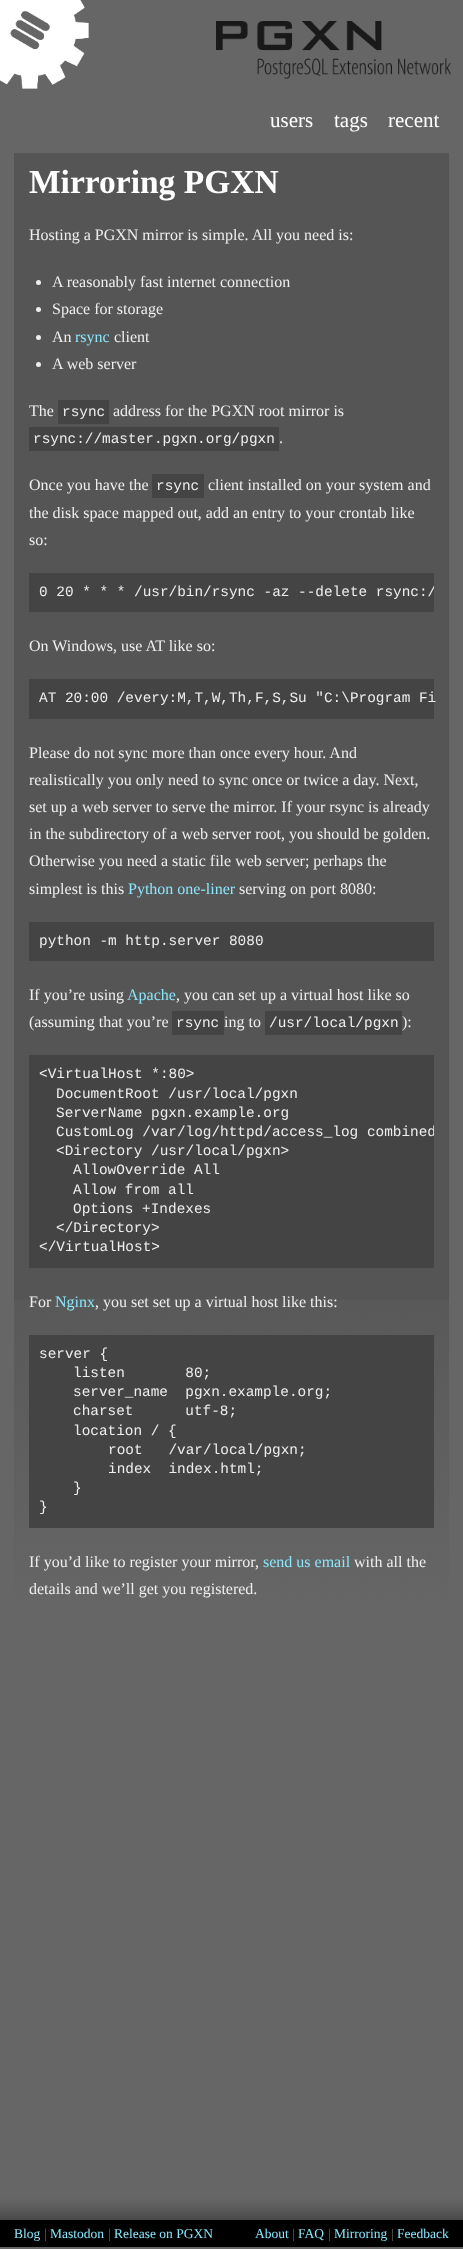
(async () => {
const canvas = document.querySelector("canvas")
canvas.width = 463
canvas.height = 2249
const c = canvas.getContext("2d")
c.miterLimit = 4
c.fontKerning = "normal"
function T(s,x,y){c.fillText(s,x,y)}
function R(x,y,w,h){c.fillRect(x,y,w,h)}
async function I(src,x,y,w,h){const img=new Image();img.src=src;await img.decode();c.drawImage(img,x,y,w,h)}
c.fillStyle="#666"
R(0,0,463,2249)
await I("1.png",0,0,89,89)
await I("2.png",216,21,235,58)
c.font="21px Liberation Serif"
c.fillStyle="#fff"
T("users",270,127)
T("tags",334,127)
T("recent",388,127)
c.fillStyle="#555"
R(14,153,435,1147)
await I("3.png",14,1300,435,312)
c.font="bold 33.5px Liberation Serif"
c.fillStyle="#fff"
T("Mirroring PGXN",29,193)
c.font="16px Liberation Serif"
c.fillStyle="#eee"
T("Hosting a PGXN mirror is simple. All you need is:",29,240)
c.beginPath()
c.arc(38.5,282.5,2.5,0,7)
c.fill()
T("A reasonably fast internet connection",52,287)
c.beginPath()
c.arc(38.5,309.5,2.5,0,7)
c.fill()
T("Space for storage",52,314)
c.beginPath()
c.arc(38.5,337.5,2.5,0,7)
c.fill()
T("An",52,342)
c.fillStyle="#8be6fa"
T("rsync",75,342)
c.fillStyle="#eee"
T("client",114,342)
c.beginPath()
c.arc(38.5,364.5,2.5,0,7)
c.fill()
T("A web server",52,369)
T("The",29,416)
c.fillStyle="#444"
R(58,400,51,24)
c.font="14.4px Liberation Mono"
c.fillStyle="#eee"
T("rsync",62,416)
c.font="16px Liberation Serif"
T("address for the PGXN root mirror is",113,416)
c.fillStyle="#444"
R(29,427,250,24)
c.font="14.4px Liberation Mono"
c.fillStyle="#eee"
T("rsync://master.pgxn.org/pgxn",33,443)
c.font="16px Liberation Serif"
T(".",279,443)
T("Once you have the",29,490)
c.fillStyle="#444"
R(152,474,52,24)
c.font="14.4px Liberation Mono"
c.fillStyle="#eee"
T("rsync",156,490)
c.font="16px Liberation Serif"
T("client installed on your system and",208,490)
T("the disk space mapped out, add an entry to your crontab like",29,518)
T("so:",29,545)
c.fillStyle="#444"
R(29,573,405,39)
c.save()
c.beginPath()
c.rect(29,573,405,39)
c.clip()
c.font="14.4px Liberation Mono"
c.fillStyle="#eee"
T("0 20 * * * /usr/bin/rsync -az --delete rsync:/",39,596)
c.restore()
c.fillStyle="#eee"
T("On Windows, use AT like so:",29,651)
c.fillStyle="#444"
R(29,679,405,40)
c.font="14.4px Liberation Mono"
c.fillStyle="#eee"
T("AT 20:00 /every:M,T,W,Th,F,S,Su \"C:\\Program Fi",39,702)
c.font="16px Liberation Serif"
T("Please do not sync more than once every hour. And",29,758)
T("realistically you only need to sync once or twice a day. Next,",29,785)
T("set up a web server to serve the mirror. If your rsync is already",29,812)
T("in the subdirectory of a web server root, you should be golden.",29,839)
T("Otherwise you need a static file web server; perhaps the",29,866)
T("simplest is this",29,894)
c.fillStyle="#8be6fa"
T("Python one-liner",128,894)
c.fillStyle="#eee"
T("serving on port 8080:",239,894)
c.fillStyle="#444"
R(29,922,405,39)
c.font="14.4px Liberation Mono"
c.fillStyle="#eee"
T("python -m http.server 8080",39,945)
c.font="16px Liberation Serif"
T("If you’re using",29,1000)
c.fillStyle="#8be6fa"
T("Apache",127,1000)
c.fillStyle="#eee"
T(", you can set up a virtual host like so",176,1000)
T("(assuming that you’re",29,1027)
c.fillStyle="#444"
R(172,1011,52,24)
c.font="14.4px Liberation Mono"
c.fillStyle="#eee"
T("rsync",176,1027)
c.font="16px Liberation Serif"
T("ing to",224,1027)
c.fillStyle="#444"
R(265,1011,137,24)
c.font="14.4px Liberation Mono"
c.fillStyle="#eee"
T("/usr/local/pgxn",269,1027)
c.font="16px Liberation Serif"
T("):",402,1027)
c.fillStyle="#444"
R(29,1055,405,213)
c.font="14.4px Liberation Mono"
c.fillStyle="#eee"
T("<VirtualHost *:80>",39,1078)
T("DocumentRoot /usr/local/pgxn",56,1098)
T("ServerName pgxn.example.org",56,1117)
c.save()
c.beginPath()
c.rect(29,1055,405,213)
c.clip()
T("CustomLog /var/log/httpd/access_log combined",56,1136)
c.restore()
T("<Directory /usr/local/pgxn>",56,1155)
T("AllowOverride All",73,1174)
T("Allow from all",73,1194)
T("Options +Indexes",73,1213)
T("<\/Directory>",56,1232)
T("<\/VirtualHost>",39,1251)
c.font="16px Liberation Serif"
T("For",29,1307)
c.fillStyle="#8be6fa"
T("Nginx",55,1307)
c.fillStyle="#eee"
T(", you set set up a virtual host like this:",95,1307)
c.fillStyle="#444"
R(29,1335,405,193)
c.font="14.4px Liberation Mono"
c.fillStyle="#eee"
T("server {",39,1358)
T("listen       80;",73,1377)
T("server_name  pgxn.example.org;",73,1396)
T("charset      utf-8;",73,1415)
T("location / {",73,1435)
T("root   /var/local/pgxn;",108,1454)
T("index  index.html;",108,1473)
T("}",73,1492)
T("}",39,1511)
c.font="16px Liberation Serif"
T("If you’d like to register your mirror,",29,1567)
c.fillStyle="#8be6fa"
T("send us email",263,1567)
c.fillStyle="#eee"
T("with all the",354,1567)
T("details and we’ll get you registered.",29,1594)
c.fillStyle="#000"
R(0,2220,463,27)
await I("4.png",0,2193,463,27)
c.font="13.5px Liberation Serif"
c.fillStyle="#8be6fa"
T("Blog",14,2238)
c.fillStyle="#666"
T("|",44,2238)
c.fillStyle="#8be6fa"
T("Mastodon",50,2238)
c.fillStyle="#666"
T("|",108,2238)
c.fillStyle="#8be6fa"
T("Release on PGXN",114,2238)
T("About",255,2238)
c.fillStyle="#666"
T("|",292,2238)
c.fillStyle="#8be6fa"
T("FAQ",298,2238)
c.fillStyle="#666"
T("|",328,2238)
c.fillStyle="#8be6fa"
T("Mirroring",334,2238)
c.fillStyle="#666"
T("|",391,2238)
c.fillStyle="#8be6fa"
T("Feedback",397,2238)
})()
